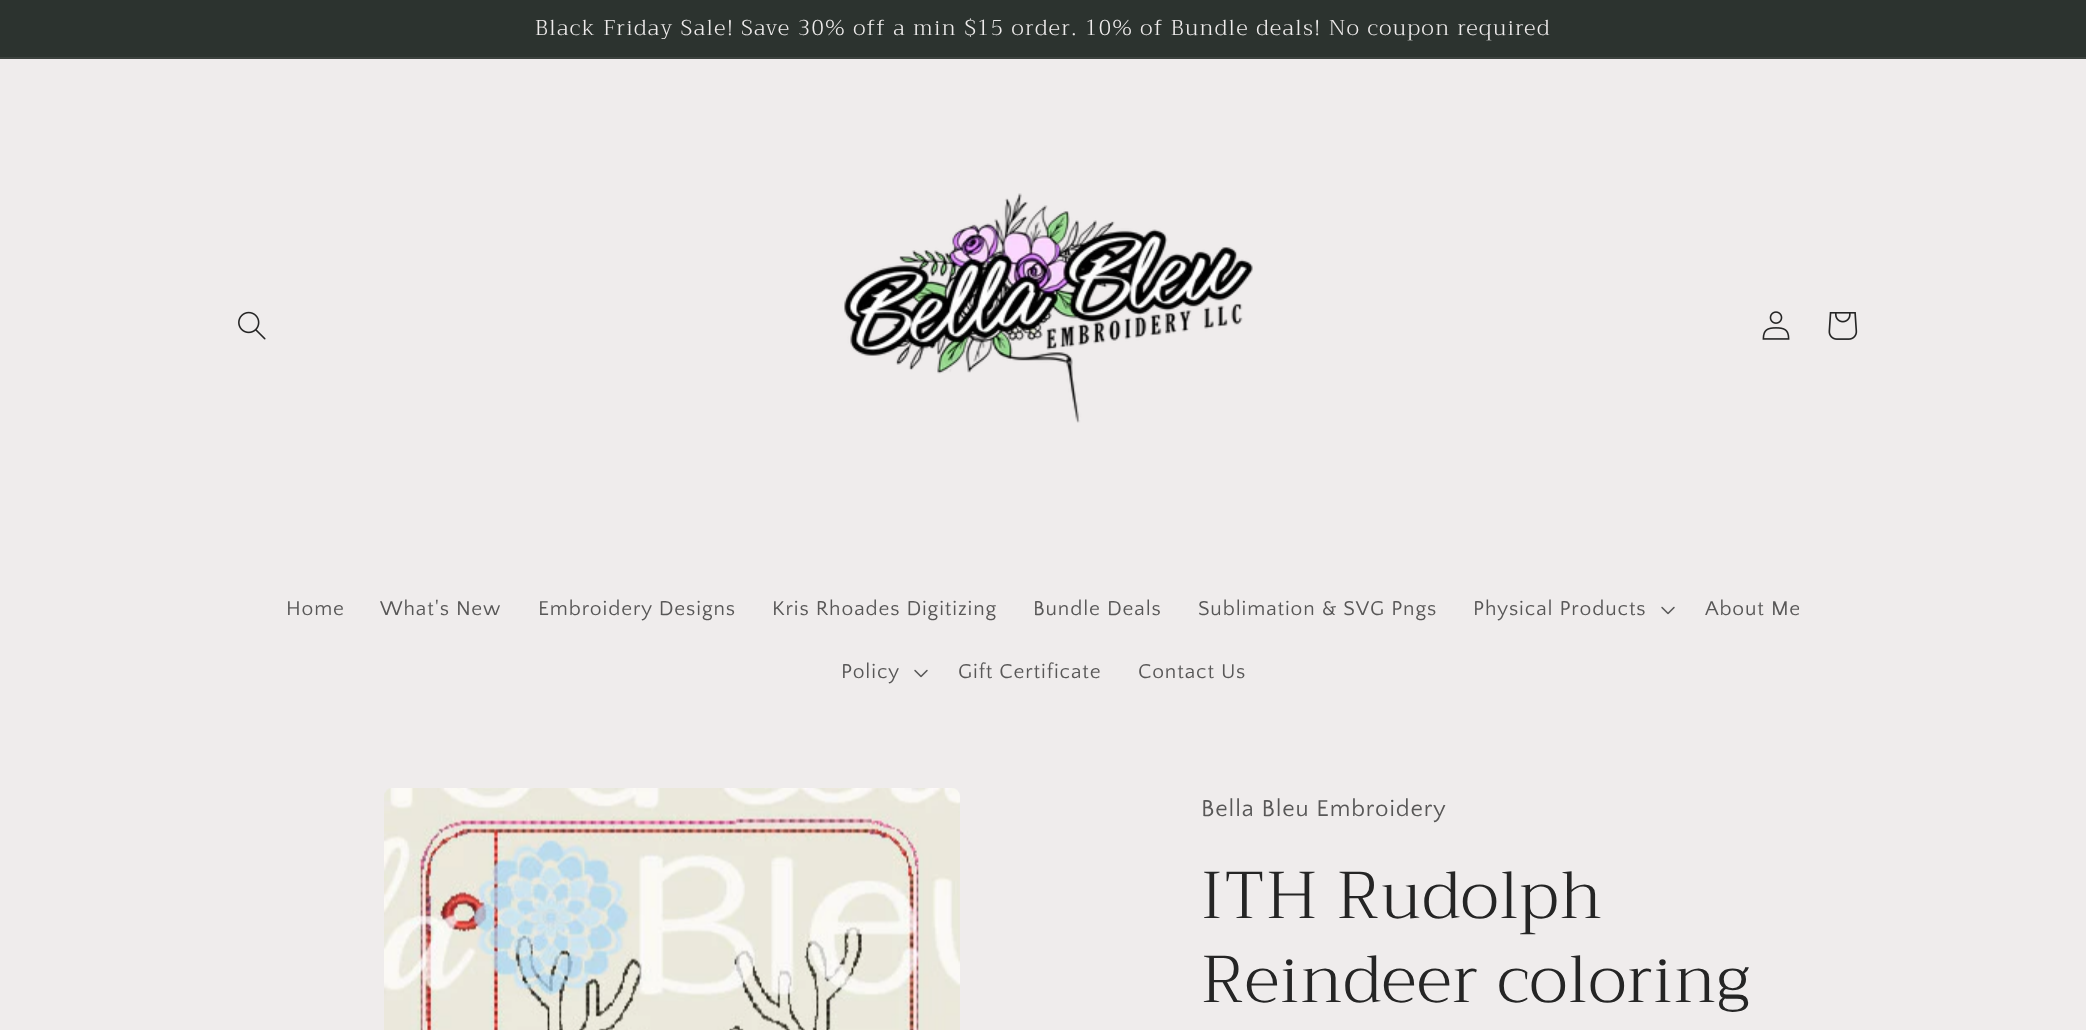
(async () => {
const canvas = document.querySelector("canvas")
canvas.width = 2086
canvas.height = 1030
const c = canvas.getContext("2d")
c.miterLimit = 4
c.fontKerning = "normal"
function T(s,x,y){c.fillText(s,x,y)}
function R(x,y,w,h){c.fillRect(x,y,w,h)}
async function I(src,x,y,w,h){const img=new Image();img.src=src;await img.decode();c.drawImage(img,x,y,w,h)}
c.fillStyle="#efecec"
R(0,0,2086,1030)
c.fillStyle="#2c332f"
R(0,0,2086,57)
c.fillStyle="#3c423e"
R(0,57,2086,2)
c.letterSpacing="1.5px"
c.font="300 21.45px Trirong"
c.fillStyle="#efecec"
T("Black Friday Sale! Save 30% off a min $15 order. 10% of Bundle deals! No coupon required",535,35)
await I("1.png",238,311,28,29)
await I("2.png",844,193,409,230)
await I("3.png",1762,311,28,29)
await I("4.png",1828,312,30,28)
c.letterSpacing="0.9px"
c.font="21px Quattrocento Sans"
c.fillStyle="#585757"
T("Home",286,615)
T("What's New",380,615)
T("Embroidery Designs",538,615)
T("Kris Rhoades Digitizing",772,615)
T("Bundle Deals",1033,615)
T("Sublimation & SVG Pngs",1198,615)
T("Physical Products",1473,615)
await I("5.png",1661,606,14,9)
T("About Me",1705,615)
T("Policy",841,678)
await I("5.png",914,669,14,9)
T("Gift Certificate",958,678)
T("Contact Us",1138,678)
await I("6.png",384,788,576,242)
c.font="24px Quattrocento Sans"
T("Bella Bleu Embroidery",1201,816)
c.letterSpacing="1px"
c.font="300 66px Trirong"
c.fillStyle="#252525"
T("ITH Rudolph",1201,918)
T("Reindeer coloring",1201,1002)
})()
